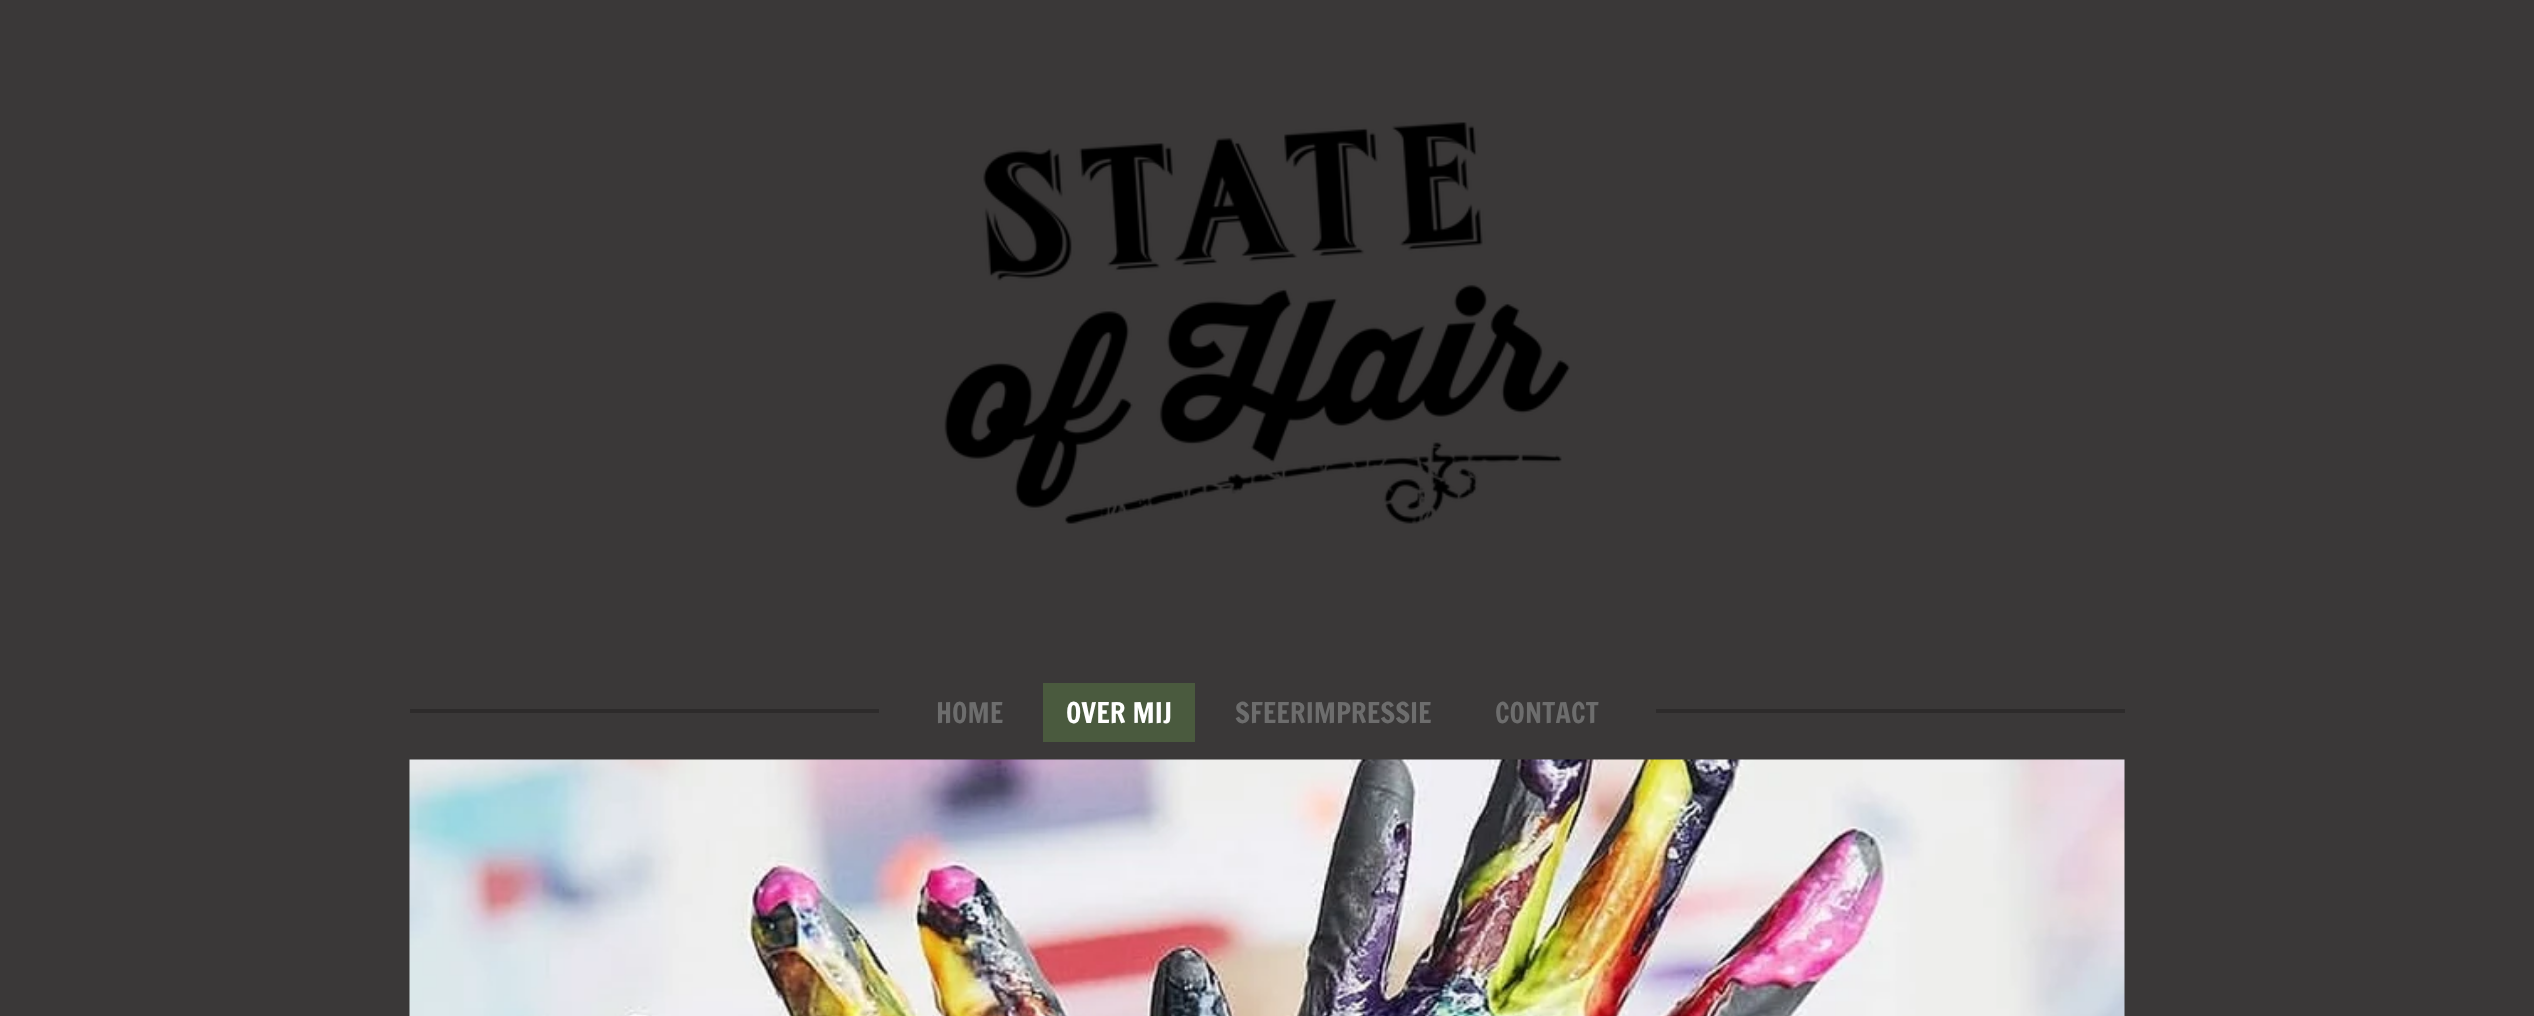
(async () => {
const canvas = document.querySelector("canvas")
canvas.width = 2534
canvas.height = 1016
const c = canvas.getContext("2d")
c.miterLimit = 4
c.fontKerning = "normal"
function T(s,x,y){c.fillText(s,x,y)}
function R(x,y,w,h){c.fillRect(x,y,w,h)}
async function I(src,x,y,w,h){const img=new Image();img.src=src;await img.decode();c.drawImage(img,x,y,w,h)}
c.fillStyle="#3a3838"
R(0,0,2534,1016)
await I("1.png",944,122,626,402)
c.fillStyle="#2d2b2b"
R(410,709,469,4)
c.font="28px Francois One"
c.fillStyle="#6d6d6d"
T("HOME",936,723)
c.fillStyle="#4a5a3e"
R(1043,683,152,59)
c.fillStyle="#fff"
T("OVER MIJ",1066,723)
c.fillStyle="#6d6d6d"
T("SFEERIMPRESSIE",1235,723)
T("CONTACT",1495,723)
c.fillStyle="#2d2b2b"
R(1656,709,469,4)
await I("2.png",409,759,1716,257)
})()
